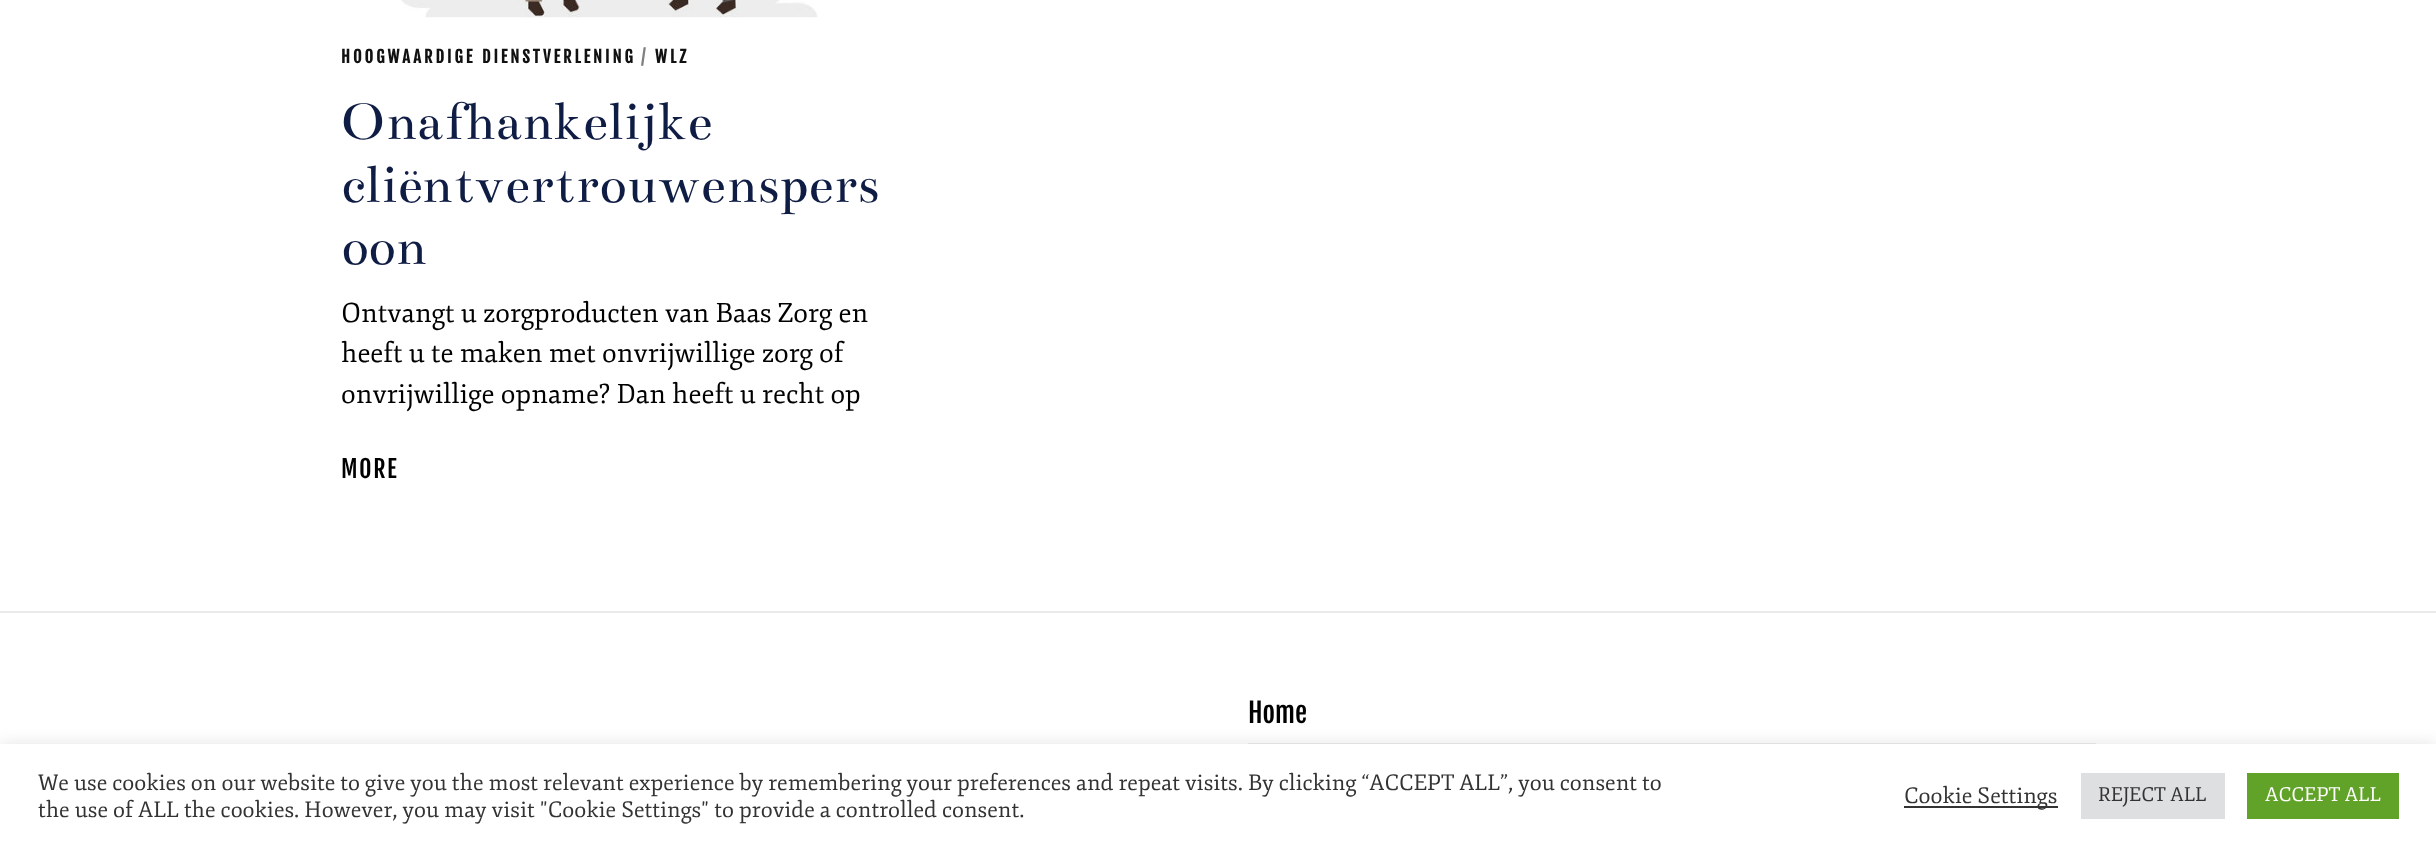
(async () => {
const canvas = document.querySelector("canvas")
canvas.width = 2436
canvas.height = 847
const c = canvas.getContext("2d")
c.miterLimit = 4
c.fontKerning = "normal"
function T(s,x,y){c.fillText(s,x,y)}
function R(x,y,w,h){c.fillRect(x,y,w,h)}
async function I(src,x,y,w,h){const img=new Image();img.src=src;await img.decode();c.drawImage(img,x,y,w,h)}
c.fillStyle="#fff"
R(0,0,2436,847)
await I("1.png",401,0,417,18)
c.letterSpacing="3px"
c.font="bold 16.5px Fjalla One"
c.fillStyle="#111"
T("HOOGWAARDIGE DIENSTVERLENING",341,63)
c.fillStyle="#808080"
T("/",641,63)
c.fillStyle="#111"
T("WLZ",655,63)
c.letterSpacing="0px"
c.font="56.75px Bentham"
c.fillStyle="#0f1c44"
T("Onafhankelijke",341,139)
T("cliëntvertrouwenspers",341,202)
T("oon",341,264)
c.font="27px Fjord"
c.fillStyle="#000"
T("Ontvangt u zorgproducten van Baas Zorg en",341,322)
T("heeft u te maken met onvrijwillige zorg of",341,362)
T("onvrijwillige opname? Dan heeft u recht op",341,403)
c.letterSpacing="1.5px"
c.font="24px Fjalla One"
T("MORE",341,478)
c.fillStyle="#eaeaea"
R(0,611,2436,2)
c.letterSpacing="0px"
c.font="27px Fjalla One"
c.fillStyle="#000"
T("Home",1248,723)
c.fillStyle="#eaeaea"
R(1248,743,848,1)
c.fillStyle="#acabab4d"
c.filter="blur(7.5px)"
c.beginPath()
c.rect(0,743,2436,103)
c.fill()
c.filter="none"
c.fillStyle="#fff"
R(0,744,2436,103)
c.font="22px Fjord"
c.fillStyle="#333"
T("We use cookies on our website to give you the most relevant experience by remembering your preferences and repeat visits. By clicking “ACCEPT ALL”, you consent to",38,790)
T("the use of ALL the cookies. However, you may visit \"Cookie Settings\" to provide a controlled consent.",38,817)
R(1904,806,154,2)
T("Cookie Settings",1904,803)
c.fillStyle="#dedfe0"
R(2081,773,144,46)
c.font="19.5px Fjord"
c.fillStyle="#333"
T("REJECT ALL",2098,801)
c.fillStyle="#61a229"
R(2247,773,152,46)
c.fillStyle="#fff"
T("ACCEPT ALL",2265,801)
})()
